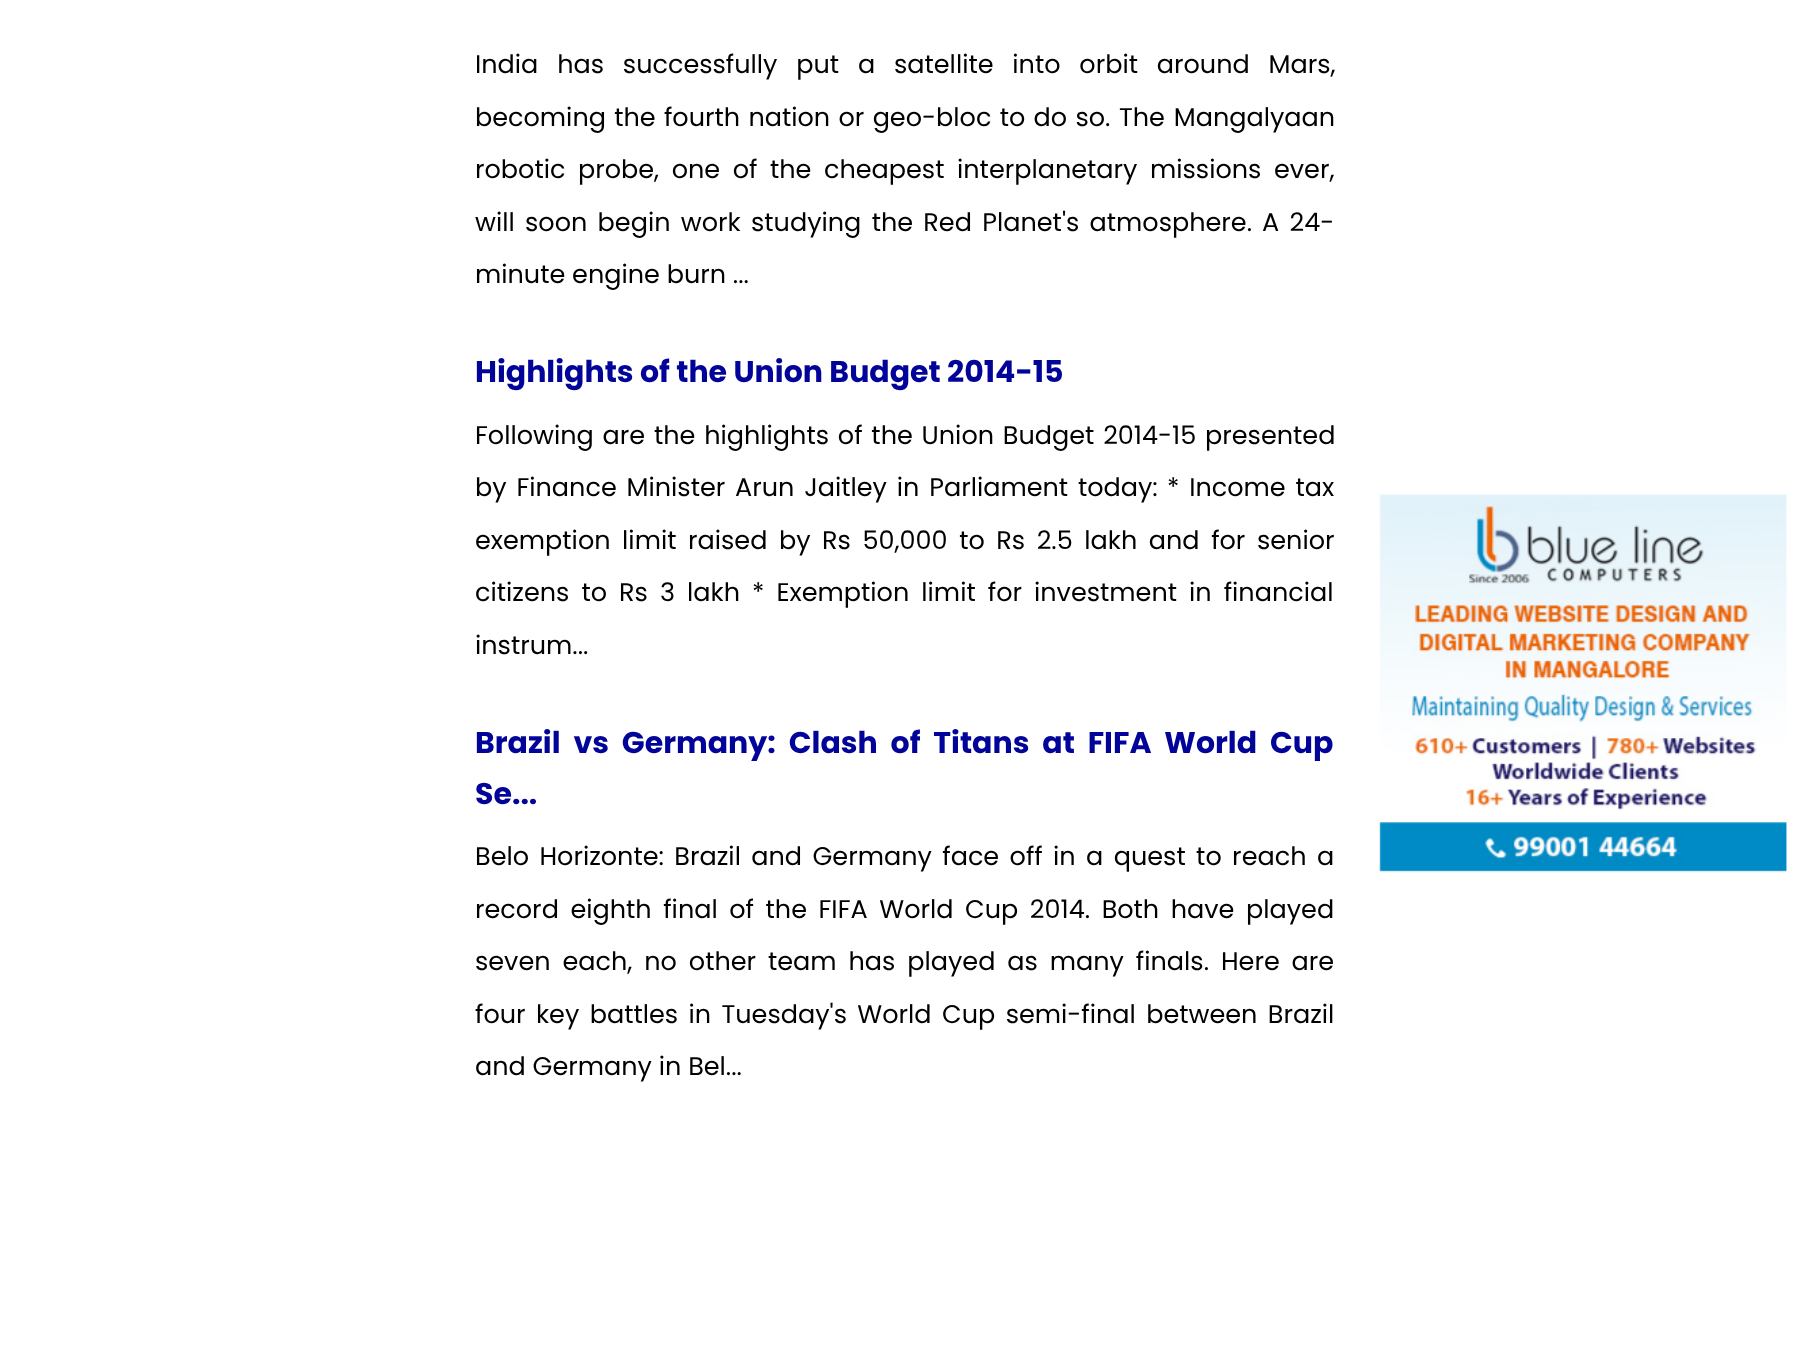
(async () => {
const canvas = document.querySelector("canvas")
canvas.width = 1809
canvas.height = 1369
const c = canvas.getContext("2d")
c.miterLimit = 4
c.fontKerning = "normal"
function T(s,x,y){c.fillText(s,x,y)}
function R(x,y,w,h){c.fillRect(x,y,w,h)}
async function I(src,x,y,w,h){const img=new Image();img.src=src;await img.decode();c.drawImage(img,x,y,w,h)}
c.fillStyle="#fff"
R(0,0,1809,1369)
c.wordSpacing="12px"
c.font="25.5px Poppins"
c.fillStyle="#000"
T("India has successfully put a satellite into orbit around Mars,",475,73)
c.wordSpacing="1.5px"
T("becoming the fourth nation or geo-bloc to do so.",475,126)
c.wordSpacing="2px"
T("The Mangalyaan",1119,126)
c.wordSpacing="5.75px"
T("robotic probe, one of the cheapest interplanetary missions ever,",475,178)
c.wordSpacing="3.5px"
T("will soon begin work studying the Red Planet's atmosphere.",475,231)
T("A 24-",1262,231)
c.wordSpacing="0px"
T("minute engine burn ...",475,283)
c.font="bold 30px Poppins"
c.fillStyle="#020399"
T("Highlights of the Union Budget 2014-15",475,382)
c.wordSpacing="2px"
c.font="25.5px Poppins"
c.fillStyle="#000"
T("Following are the highlights of the Union Budget 2014-15 presented",475,444)
c.wordSpacing="3px"
T("by Finance Minister Arun Jaitley in Parliament today:",475,496)
T("* Income tax",1167,496)
c.wordSpacing="4.75px"
T("exemption limit raised by Rs 50,000 to Rs 2.5 lakh and for senior",475,549)
c.wordSpacing="5.25px"
T("citizens to Rs 3 lakh",475,601)
T("* Exemption limit for investment in financial",752,601)
c.wordSpacing="0px"
T("instrum...",475,654)
c.wordSpacing="6.5px"
c.font="bold 30px Poppins"
c.fillStyle="#020399"
T("Brazil vs Germany: Clash of Titans at FIFA World Cup",475,753)
c.wordSpacing="0px"
T("Se...",475,804)
c.wordSpacing="3.6px"
c.font="25.5px Poppins"
c.fillStyle="#000"
T("Belo Horizonte: Brazil and Germany face off in a quest to reach a",475,865)
c.wordSpacing="4.75px"
T("record eighth final of the FIFA World Cup 2014. Both have played",475,918)
c.wordSpacing="5.1px"
T("seven each, no other team has played as many finals. Here are",475,970)
c.wordSpacing="3.6px"
T("four key battles in Tuesday's World Cup semi-final between Brazil",475,1023)
c.wordSpacing="0px"
T("and Germany in Bel...",475,1075)
await I("1.png",1379,494,408,379)
})()
